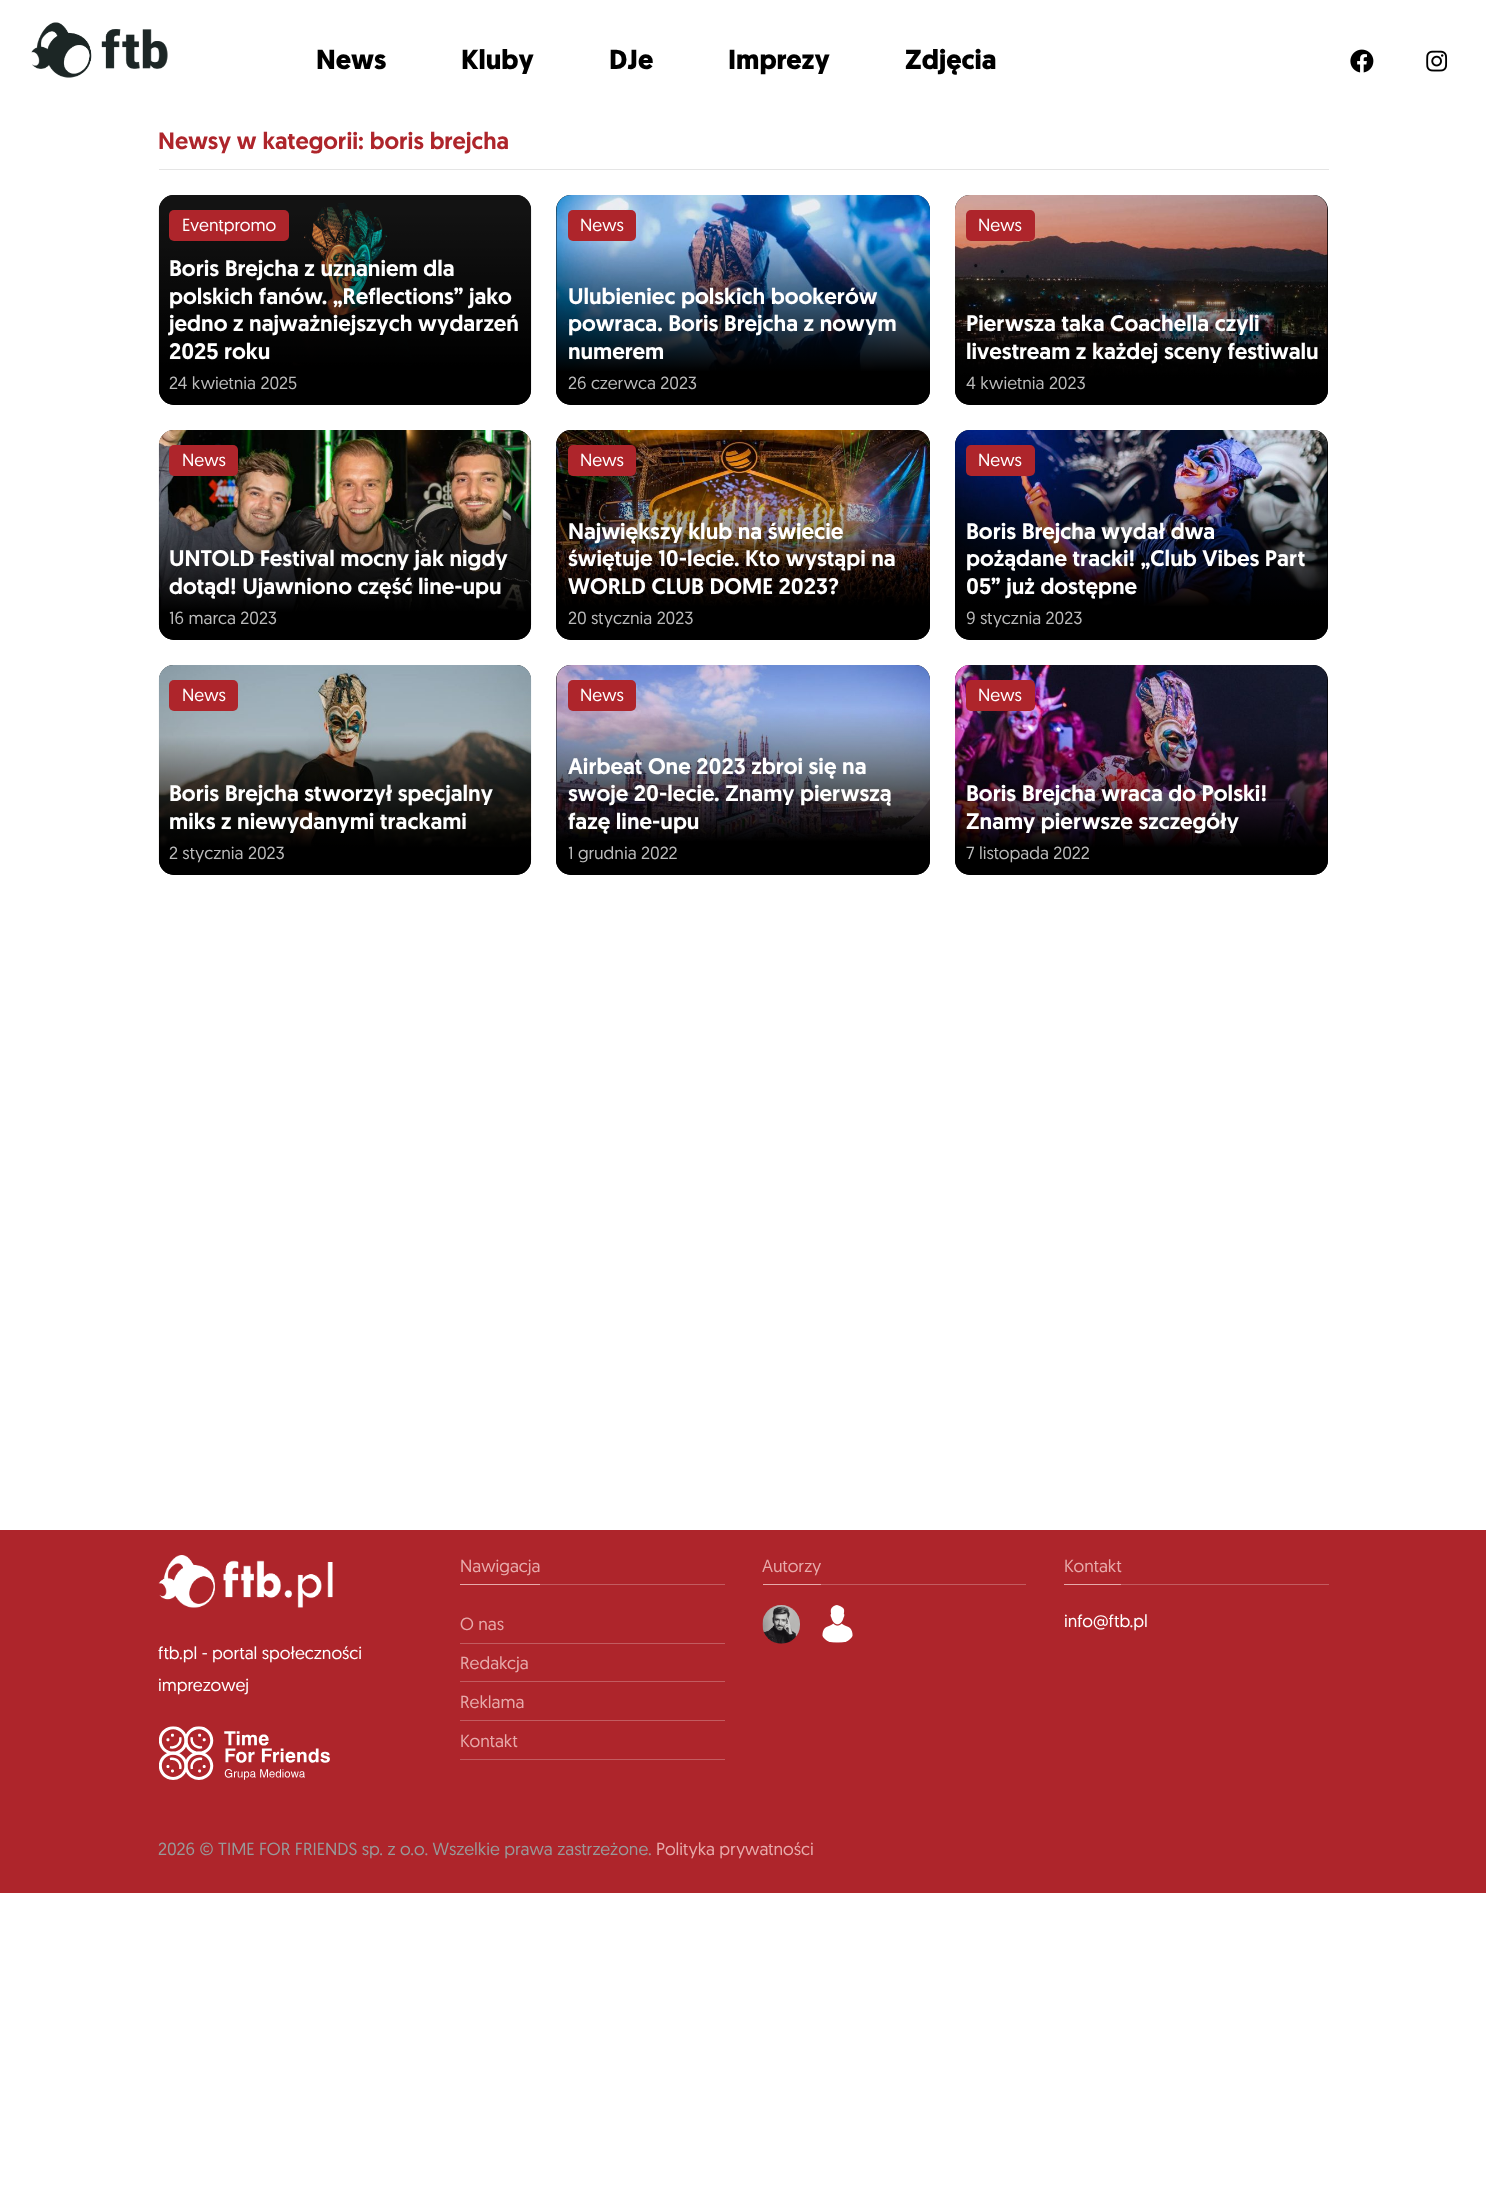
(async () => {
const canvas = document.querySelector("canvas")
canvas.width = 1486
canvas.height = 2186
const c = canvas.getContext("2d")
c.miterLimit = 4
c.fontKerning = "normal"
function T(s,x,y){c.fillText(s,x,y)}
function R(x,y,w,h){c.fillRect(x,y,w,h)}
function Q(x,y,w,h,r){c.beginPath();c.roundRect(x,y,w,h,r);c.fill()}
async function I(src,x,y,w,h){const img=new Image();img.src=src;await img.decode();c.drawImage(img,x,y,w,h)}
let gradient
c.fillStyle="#fff"
R(0,0,1486,2186)
await I("1.png",31,22,137,56)
c.font="bold 27.5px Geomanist"
c.fillStyle="#000"
T("News",316,69)
T("Kluby",461,69)
T("DJe",609,69)
T("Imprezy",728,69)
T("Zdjęcia",905,69)
await I("2.png",1350,49,24,24)
await I("3.png",1426,50,22,22)
c.fillStyle="#e5e5e5"
R(159,169,1170,1)
c.font="500 23.75px Geomanist"
c.fillStyle="#ae252b"
T("Newsy w kategorii: boris brejcha",158,149)
c.fillStyle="#000"
Q(159,195,372,210,15)
await I("4.png",158,195,374,195)
gradient = c.createLinearGradient(345,211,345,405)
gradient.addColorStop(0,"#00000000")
gradient.addColorStop(.8,"#000")
c.fillStyle = gradient
c.beginPath()
c.roundRect(159,211,372,194,[0,0,15,15])
c.fill()
c.fillStyle="#ae252b"
Q(169,210,120,31,5)
c.font="17.5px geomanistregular"
c.fillStyle="#fff"
T("Eventpromo",182,231)
c.font="500 22.5px Geomanist"
T("Boris Brejcha z uznaniem dla",169,276)
T("polskich fanów. „Reflections” jako",169,304)
T("jedno z najważniejszych wydarzeń",169,331)
T("2025 roku",169,359)
c.font="17.5px geomanistregular"
c.fillStyle="#bbb"
T("24 kwietnia 2025",169,389)
c.fillStyle="#000"
Q(556,195,374,210,15)
await I("5.png",556,195,374,176)
gradient = c.createLinearGradient(743,239,743,405)
gradient.addColorStop(0,"#00000000")
gradient.addColorStop(.8,"#000")
c.fillStyle = gradient
c.beginPath()
c.roundRect(556,239,374,166,[0,0,15,15])
c.fill()
c.fillStyle="#ae252b"
Q(568,210,68,31,5)
c.fillStyle="#fff"
T("News",580,231)
c.font="500 22.5px Geomanist"
T("Ulubieniec polskich bookerów",568,304)
T("powraca. Boris Brejcha z nowym",568,331)
T("numerem",568,359)
c.font="17.5px geomanistregular"
c.fillStyle="#bbb"
T("26 czerwca 2023",568,389)
c.fillStyle="#000"
Q(955,195,373,210,15)
await I("6.png",955,195,373,182)
c.fillStyle="#ae252b"
Q(966,210,69,31,5)
c.fillStyle="#fff"
T("News",978,231)
gradient = c.createLinearGradient(1141,266,1141,405)
gradient.addColorStop(0,"#00000000")
gradient.addColorStop(.8,"#000")
c.fillStyle = gradient
c.beginPath()
c.roundRect(955,266,373,139,[0,0,15,15])
c.fill()
c.font="500 22.5px Geomanist"
c.fillStyle="#fff"
T("Pierwsza taka Coachella czyli",966,331)
T("livestream z każdej sceny festiwalu",966,359)
c.font="17.5px geomanistregular"
c.fillStyle="#bbb"
T("4 kwietnia 2023",966,389)
c.fillStyle="#000"
Q(159,430,372,210,15)
await I("7.png",158,430,374,195)
c.fillStyle="#ae252b"
Q(169,445,69,31,5)
c.fillStyle="#fff"
T("News",182,466)
gradient = c.createLinearGradient(345,501,345,640)
gradient.addColorStop(0,"#00000000")
gradient.addColorStop(.8,"#000")
c.fillStyle = gradient
c.beginPath()
c.roundRect(159,501,372,139,[0,0,15,15])
c.fill()
c.font="500 22.5px Geomanist"
c.fillStyle="#fff"
T("UNTOLD Festival mocny jak nigdy",169,566)
T("dotąd! Ujawniono część line-upu",169,594)
c.font="17.5px geomanistregular"
c.fillStyle="#bbb"
T("16 marca 2023",169,624)
c.fillStyle="#000"
Q(556,430,374,210,15)
await I("8.png",556,430,374,176)
gradient = c.createLinearGradient(743,474,743,640)
gradient.addColorStop(0,"#00000000")
gradient.addColorStop(.8,"#000")
c.fillStyle = gradient
c.beginPath()
c.roundRect(556,474,374,166,[0,0,15,15])
c.fill()
c.fillStyle="#ae252b"
Q(568,445,68,31,5)
c.fillStyle="#fff"
T("News",580,466)
c.font="500 22.5px Geomanist"
T("Największy klub na świecie",568,539)
T("świętuje 10-lecie. Kto wystąpi na",568,566)
T("WORLD CLUB DOME 2023?",568,594)
c.font="17.5px geomanistregular"
c.fillStyle="#bbb"
T("20 stycznia 2023",568,624)
c.fillStyle="#000"
Q(955,430,373,210,15)
await I("9.png",955,430,373,176)
gradient = c.createLinearGradient(1141,474,1141,640)
gradient.addColorStop(0,"#00000000")
gradient.addColorStop(.8,"#000")
c.fillStyle = gradient
c.beginPath()
c.roundRect(955,474,373,166,[0,0,15,15])
c.fill()
c.fillStyle="#ae252b"
Q(966,445,69,31,5)
c.fillStyle="#fff"
T("News",978,466)
c.font="500 22.5px Geomanist"
T("Boris Brejcha wydał dwa",966,539)
T("pożądane tracki! „Club Vibes Part",966,566)
T("05” już dostępne",966,594)
c.font="17.5px geomanistregular"
c.fillStyle="#bbb"
T("9 stycznia 2023",966,624)
c.fillStyle="#000"
Q(159,665,372,210,15)
await I("10.png",158,665,374,195)
c.fillStyle="#ae252b"
Q(169,680,69,31,5)
c.fillStyle="#fff"
T("News",182,701)
gradient = c.createLinearGradient(345,736,345,875)
gradient.addColorStop(0,"#00000000")
gradient.addColorStop(.8,"#000")
c.fillStyle = gradient
c.beginPath()
c.roundRect(159,736,372,139,[0,0,15,15])
c.fill()
c.font="500 22.5px Geomanist"
c.fillStyle="#fff"
T("Boris Brejcha stworzył specjalny",169,801)
T("miks z niewydanymi trackami",169,829)
c.font="17.5px geomanistregular"
c.fillStyle="#bbb"
T("2 stycznia 2023",169,859)
c.fillStyle="#000"
Q(556,665,374,210,15)
await I("11.png",556,665,374,176)
gradient = c.createLinearGradient(743,709,743,875)
gradient.addColorStop(0,"#00000000")
gradient.addColorStop(.8,"#000")
c.fillStyle = gradient
c.beginPath()
c.roundRect(556,709,374,166,[0,0,15,15])
c.fill()
c.fillStyle="#ae252b"
Q(568,680,68,31,5)
c.fillStyle="#fff"
T("News",580,701)
c.font="500 22.5px Geomanist"
T("Airbeat One 2023 zbroi się na",568,774)
T("swoje 20-lecie. Znamy pierwszą",568,801)
T("fazę line-upu",568,829)
c.font="17.5px geomanistregular"
c.fillStyle="#bbb"
T("1 grudnia 2022",568,859)
c.fillStyle="#000"
Q(955,665,373,210,15)
await I("12.png",955,665,373,182)
c.fillStyle="#ae252b"
Q(966,680,69,31,5)
c.fillStyle="#fff"
T("News",978,701)
gradient = c.createLinearGradient(1141,736,1141,875)
gradient.addColorStop(0,"#00000000")
gradient.addColorStop(.8,"#000")
c.fillStyle = gradient
c.beginPath()
c.roundRect(955,736,373,139,[0,0,15,15])
c.fill()
c.font="500 22.5px Geomanist"
c.fillStyle="#fff"
T("Boris Brejcha wraca do Polski!",966,801)
T("Znamy pierwsze szczegóły",966,829)
c.font="17.5px geomanistregular"
c.fillStyle="#bbb"
T("7 listopada 2022",966,859)
c.fillStyle="#ae252b"
R(0,1530,1486,363)
c.fillStyle="#c25c60"
R(540,1584,185,1)
c.fillStyle="#e7aaaa"
T("Nawigacja",460,1572)
R(460,1584,80,1)
c.fillStyle="#c25c60"
R(460,1643,265,1)
c.fillStyle="#e7aaaa"
T("O nas",460,1630)
c.fillStyle="#c25c60"
R(460,1681,265,1)
c.fillStyle="#e7aaaa"
T("Redakcja",460,1669)
c.fillStyle="#c25c60"
R(460,1720,265,1)
c.fillStyle="#e7aaaa"
T("Reklama",460,1708)
c.fillStyle="#c25c60"
R(460,1759,265,1)
c.fillStyle="#e7aaaa"
T("Kontakt",460,1747)
c.fillStyle="#c25c60"
R(821,1584,205,1)
c.fillStyle="#e7aaaa"
T("Autorzy",762,1572)
R(763,1584,58,1)
await I("13.png",762,1605,38,39)
await I("14.png",822,1605,31,38)
c.fillStyle="#c25c60"
R(1121,1584,208,1)
c.fillStyle="#e7aaaa"
T("Kontakt",1064,1572)
R(1064,1584,57,1)
c.fillStyle="#fff"
T("info@ftb.pl",1064,1627)
await I("15.png",158,1555,175,53)
T("ftb.pl - portal społeczności",158,1659)
T("imprezowej",158,1691)
await I("16.png",159,1726,171,54)
c.fillStyle="#999"
T("2026 © TIME FOR FRIENDS sp. z o.o. Wszelkie prawa zastrzeżone.",158,1855)
c.fillStyle="#e7aaaa"
T("Polityka prywatności",656,1855)
})()
